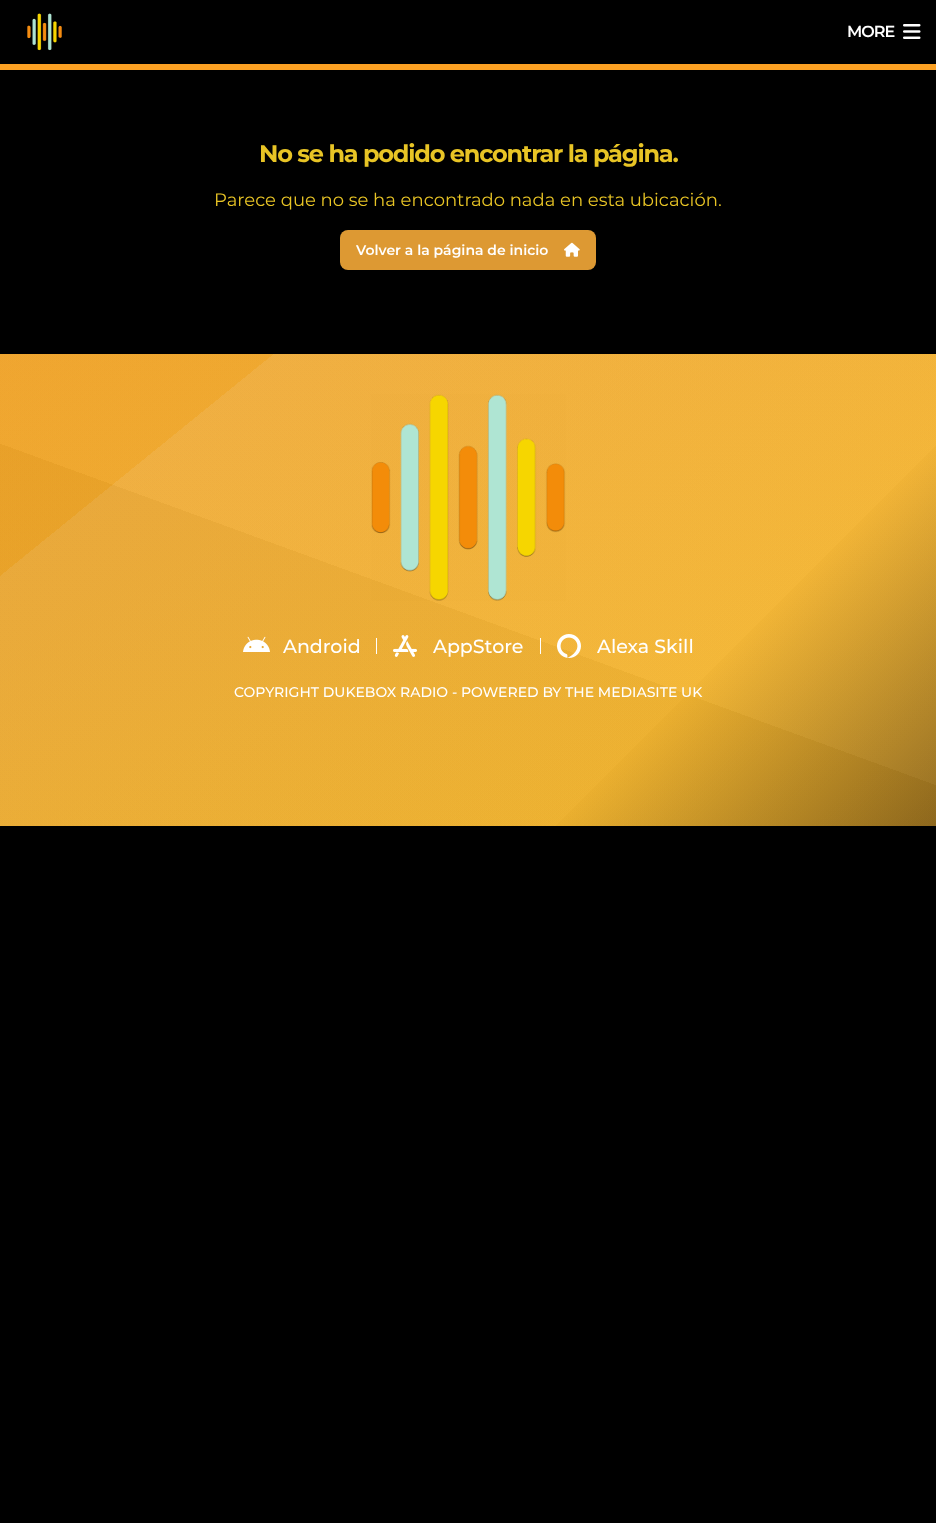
(async () => {
const canvas = document.querySelector("canvas")
canvas.width = 936
canvas.height = 1523
const c = canvas.getContext("2d")
c.miterLimit = 4
c.fontKerning = "normal"
function T(s,x,y){c.fillText(s,x,y)}
function R(x,y,w,h){c.fillRect(x,y,w,h)}
function Q(x,y,w,h,r){c.beginPath();c.roundRect(x,y,w,h,r);c.fill()}
async function I(src,x,y,w,h){const img=new Image();img.src=src;await img.decode();c.drawImage(img,x,y,w,h)}
let gradient
c.fillStyle="#000"
R(0,0,936,1523)
c.fillStyle="#fca123"
R(0,64,936,6)
await I("1.png",27,13,35,38)
c.letterSpacing="-1px"
c.font="600 16px Montserrat"
c.fillStyle="#fff"
T("MORE",847,37)
await I("2.png",903,24,18,15)
c.letterSpacing="-1.2px"
c.font="bold 24px Montserrat"
c.fillStyle="#e8c425"
T("No se ha podido encontrar la página.",259,162)
c.letterSpacing="0px"
c.font="18px Montserrat"
T("Parece que no se ha encontrado nada en esta ubicación.",214,206)
c.fillStyle="#d93"
Q(340,230,256,40,8)
c.font="600 14px Montserrat"
c.fillStyle="#fff"
T("Volver a la página de inicio",356,255)
await I("3.png",564,242,16,15)
gradient = c.createLinearGradient(267,212,669,968)
gradient.addColorStop(0,"#fdab28")
gradient.addColorStop(1,"#fdbf26")
c.fillStyle = gradient
R(0,354,936,472)
gradient = c.createLinearGradient(167,219,769,961)
gradient.addColorStop(0,"#4d330f0d")
gradient.addColorStop(.18,"#4d330f0d")
gradient.addColorStop(.18,"#ceb48f2e")
gradient.addColorStop(1,"#ceb48f0d")
c.fillStyle = gradient
R(0,354,936,472)
gradient = c.createLinearGradient(820,942,116,238)
gradient.addColorStop(0,"#513713a3")
gradient.addColorStop(.27,"#5137130d")
gradient.addColorStop(.27,"#8c724e0d")
gradient.addColorStop(1,"#8c724e0d")
c.fillStyle = gradient
R(0,354,936,472)
gradient = c.createLinearGradient(599,231,337,949)
gradient.addColorStop(0,"#f9dfbb0d")
gradient.addColorStop(.53,"#f9dfbb0d")
gradient.addColorStop(.53,"#775d390d")
gradient.addColorStop(1,"#775d390d")
c.fillStyle = gradient
R(0,354,936,472)
await I("4.png",371,394,195,207)
await I("5.png",243,636,27,16)
c.font="500 19px Montserrat"
c.fillStyle="#fff"
T("Android",283,653)
R(376,638,1,16)
await I("6.png",393,635,24,22)
T("AppStore",433,653)
R(540,638,1,16)
await I("7.png",557,634,24,24)
T("Alexa Skill",597,653)
c.font="500 14px Montserrat"
T("COPYRIGHT DUKEBOX RADIO - POWERED BY THE MEDIASITE UK",234,697)
})()
